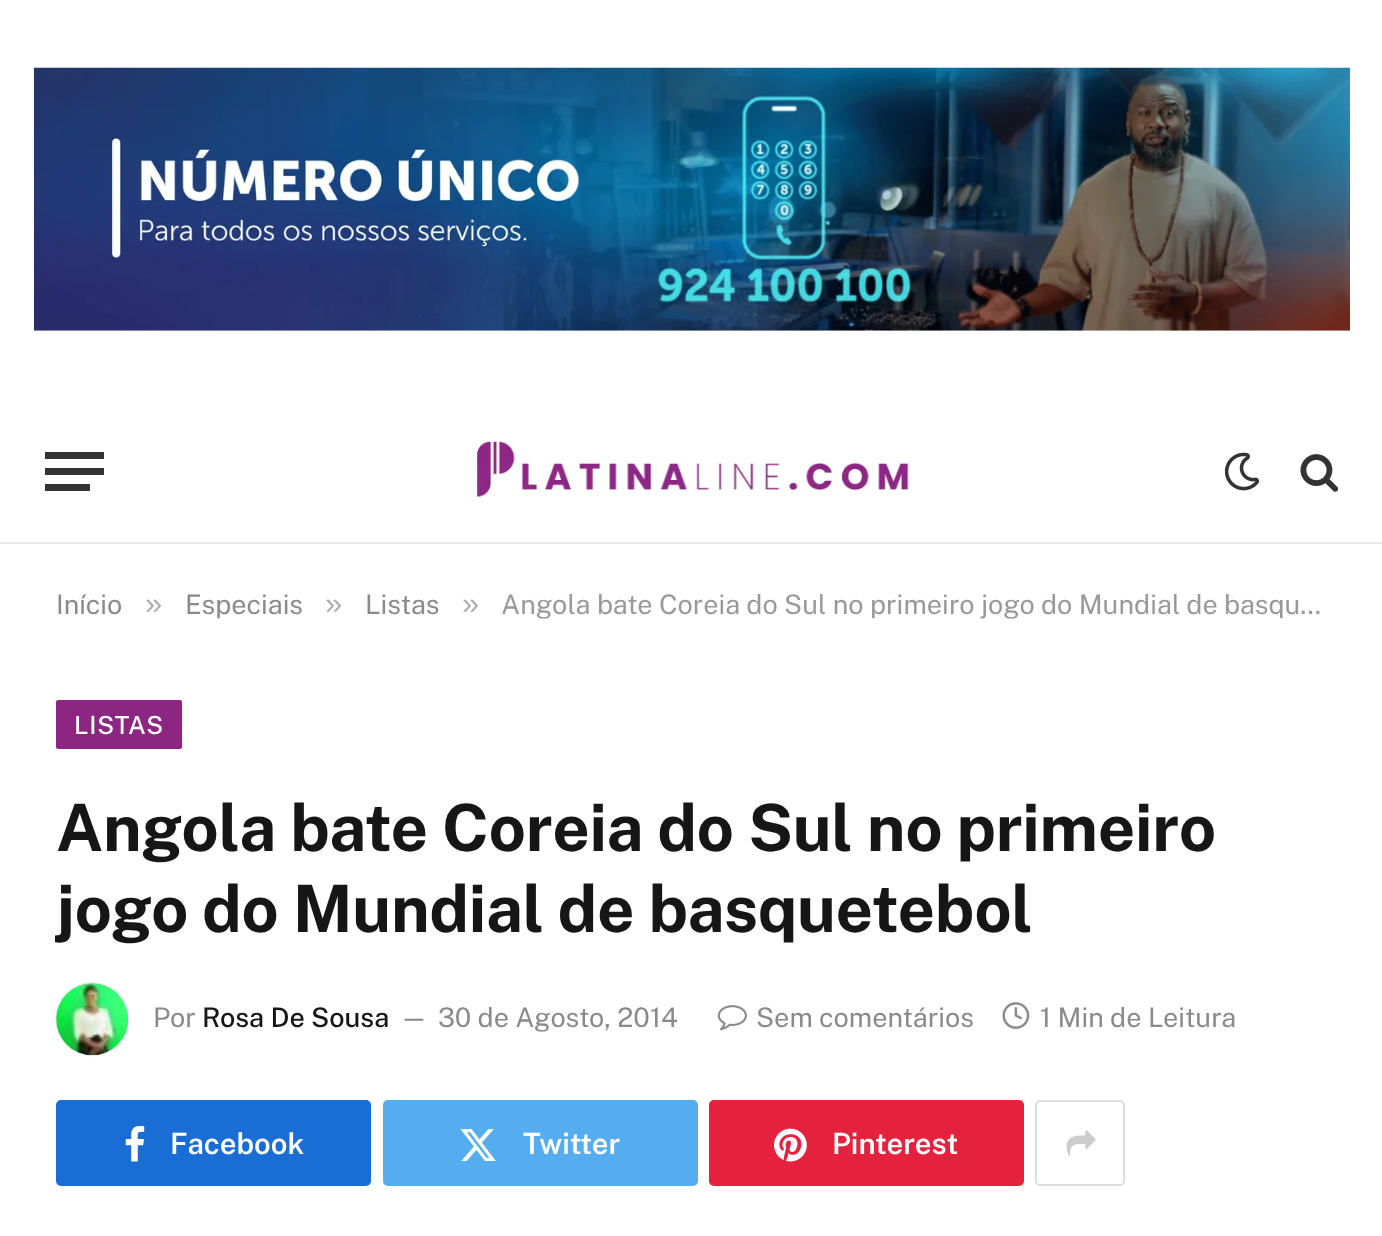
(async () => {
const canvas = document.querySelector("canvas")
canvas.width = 1382
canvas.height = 1236
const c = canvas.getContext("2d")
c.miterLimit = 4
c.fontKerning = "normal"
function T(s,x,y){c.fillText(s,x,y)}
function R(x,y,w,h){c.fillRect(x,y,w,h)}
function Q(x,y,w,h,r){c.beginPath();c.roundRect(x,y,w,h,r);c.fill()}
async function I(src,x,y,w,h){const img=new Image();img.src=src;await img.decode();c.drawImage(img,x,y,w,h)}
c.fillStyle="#fff"
R(0,0,1382,1236)
await I("1.png",33,67,1317,264)
c.fillStyle="#e8e8e8"
R(0,542,1382,2)
c.fillStyle="#333"
R(45,484,45,7)
R(45,452,59,7)
R(45,468,59,7)
await I("2.png",477,441,432,56)
await I("3.png",1224,452,36,39)
await I("4.png",1300,454,39,38)
c.font="27px Public Sans"
c.fillStyle="#8a8a8a"
T("Início",56,614)
c.font="31px Liberation Sans"
c.fillStyle="#adadad"
T("»",145,614)
c.font="27px Public Sans"
c.fillStyle="#8a8a8a"
T("Especiais",185,614)
c.font="31px Liberation Sans"
c.fillStyle="#adadad"
T("»",325,614)
c.font="27px Public Sans"
c.fillStyle="#8a8a8a"
T("Listas",365,614)
c.font="31px Liberation Sans"
c.fillStyle="#adadad"
T("»",462,614)
c.font="27px Public Sans"
c.fillStyle="#999"
T("Angola bate Coreia do Sul no primeiro jogo do Mundial de basqu…",501,614)
c.fillStyle="#8c2682"
Q(56,700,126,49,2)
c.letterSpacing="0.75px"
c.font="500 25px Public Sans"
c.fillStyle="#fff"
T("LISTAS",74,734)
c.letterSpacing="-0.35px"
c.font="bold 65.25px Public Sans"
c.fillStyle="#161616"
T("Angola bate Coreia do Sul no primeiro",56,851)
T("jogo do Mundial de basquetebol",56,932)
c.fillStyle="#00000033"
c.filter="blur(1px)"
c.beginPath()
c.roundRect(56,983,72,72,36)
c.fill()
c.filter="none"
await I("5.png",56,983,73,73)
c.letterSpacing="0px"
c.font="27px Public Sans"
c.fillStyle="#8a8a8a"
T("Por",153,1027)
c.font="500 27px Public Sans"
c.fillStyle="#161616"
T("Rosa De Sousa",202,1027)
c.font="25px Public Sans"
c.fillStyle="#8a8a8a"
T("—",400,1026)
c.font="27px Public Sans"
T("30 de Agosto, 2014",438,1027)
await I("6.png",717,1005,30,26)
T("Sem comentários",756,1027)
await I("7.png",1002,1002,28,27)
T("1 Min de Leitura",1040,1027)
c.fillStyle="#1a6dd4"
Q(56,1100,315,86,5)
await I("8.png",125,1126,20,36)
c.font="600 29.25px Public Sans"
c.fillStyle="#fff"
T("Facebook",170,1154)
c.fillStyle="#55acef"
Q(383,1100,315,86,5)
await I("9.png",460,1129,36,32)
c.fillStyle="#fff"
T("Twitter",523,1154)
c.fillStyle="#e4223e"
Q(709,1100,315,86,5)
await I("10.png",774,1128,33,34)
c.fillStyle="#fff"
T("Pinterest",832,1154)
c.beginPath()
c.roundRect(1036,1101,88,84,4)
c.strokeStyle="#ddd"
c.lineWidth=2
c.stroke()
await I("11.png",1066,1130,30,27)
})()
